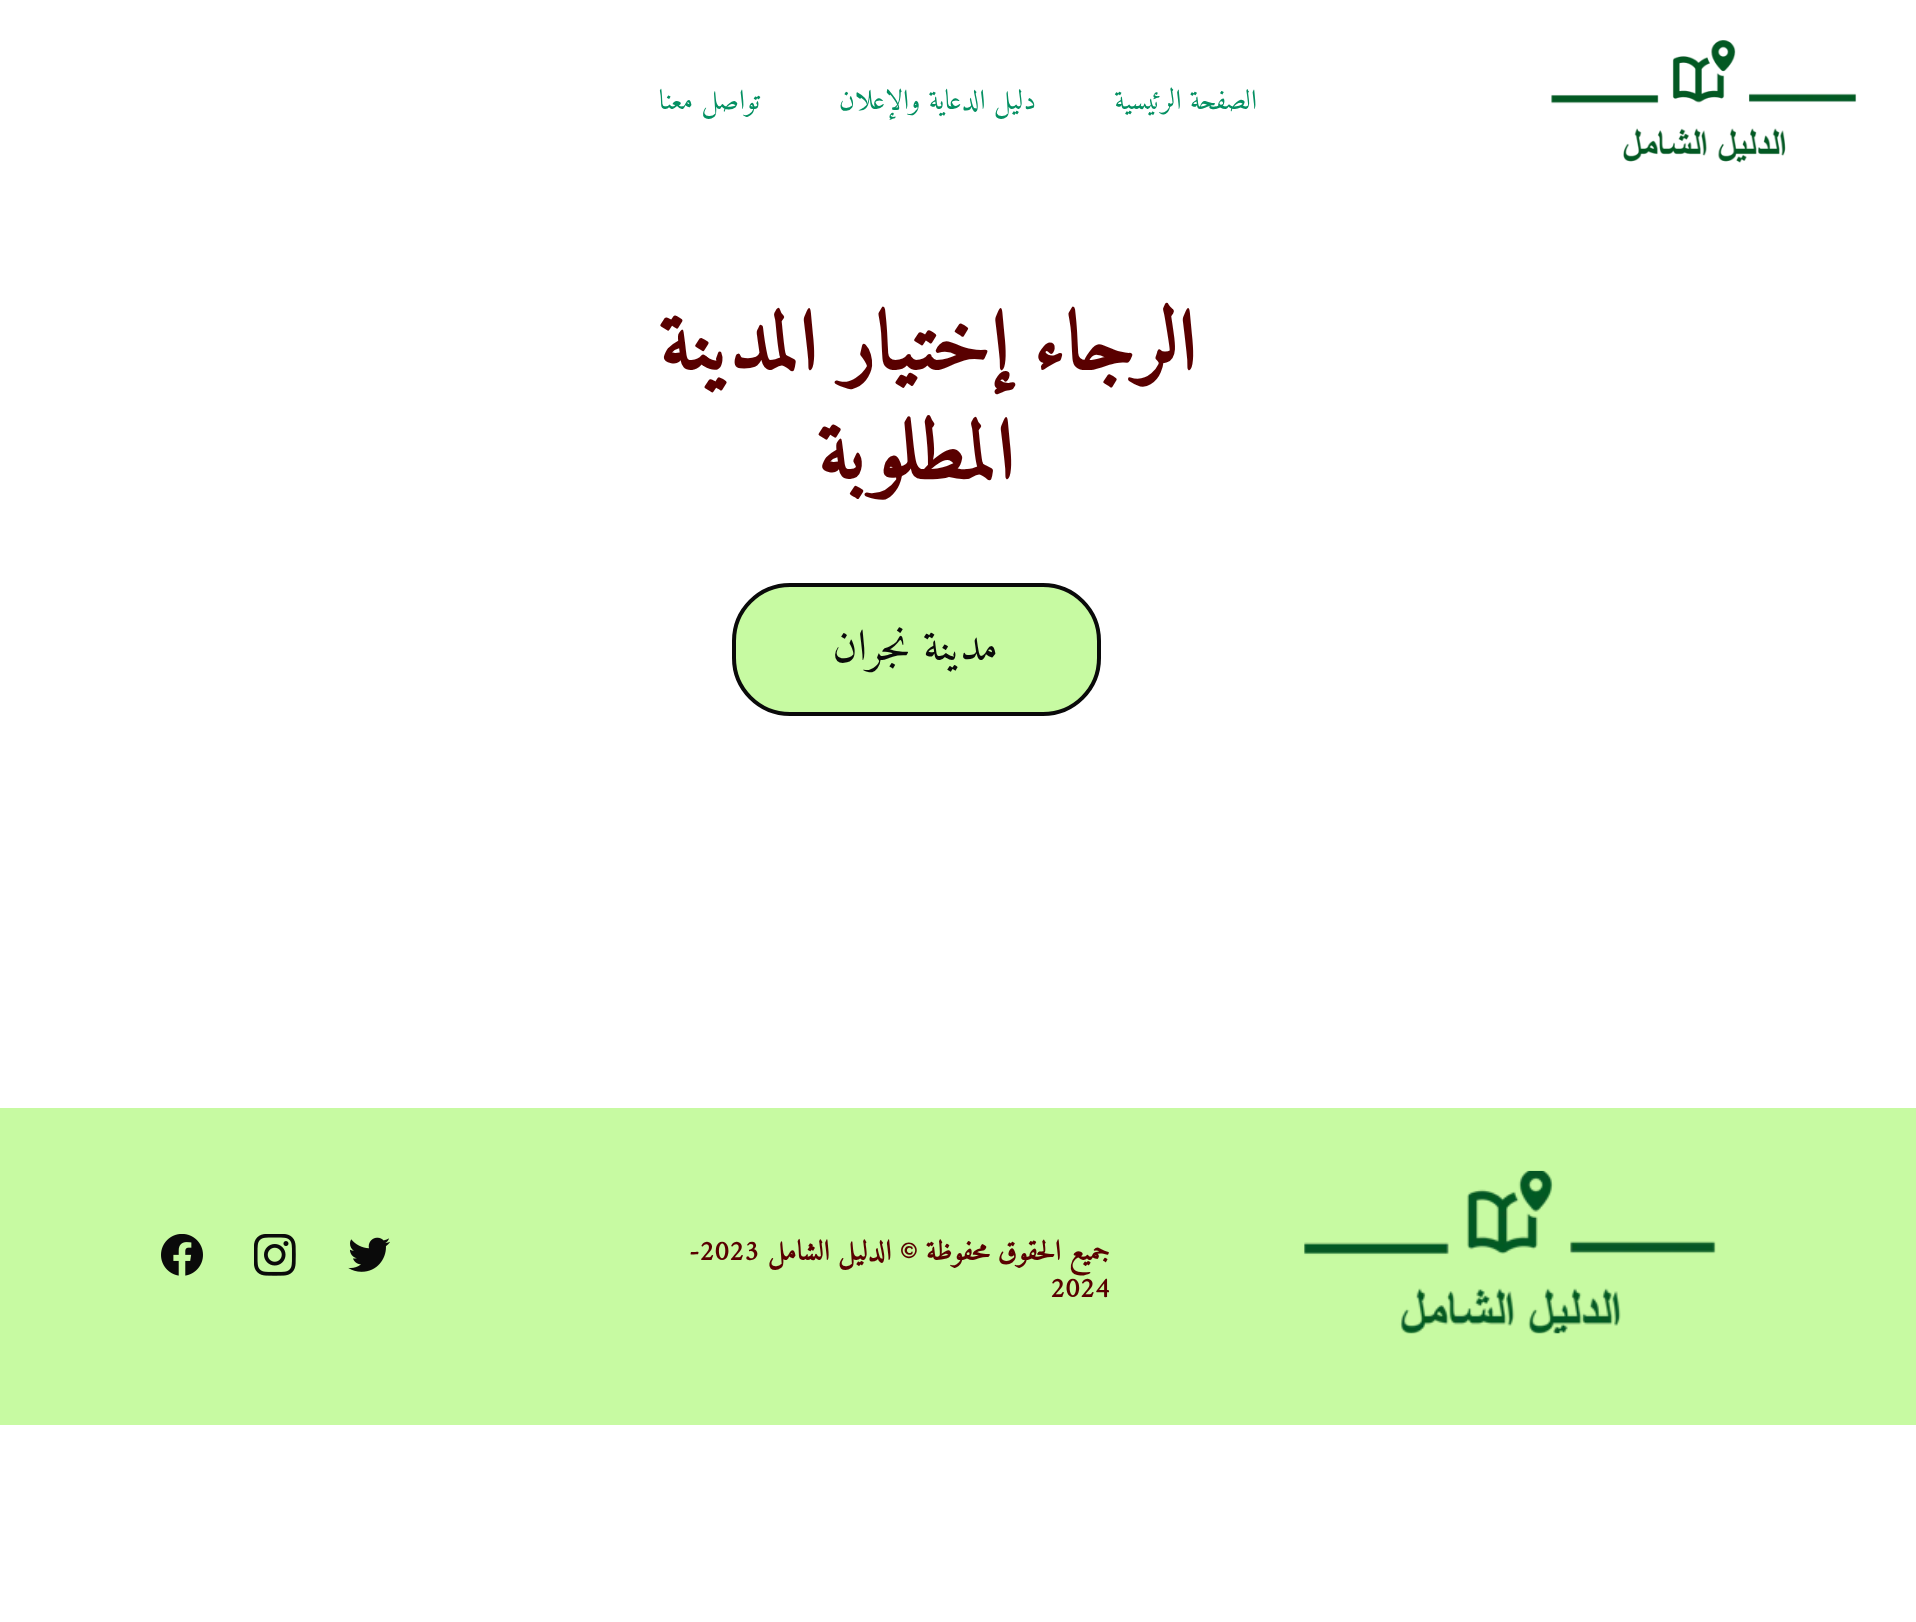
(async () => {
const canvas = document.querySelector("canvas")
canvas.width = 1916
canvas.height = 1622
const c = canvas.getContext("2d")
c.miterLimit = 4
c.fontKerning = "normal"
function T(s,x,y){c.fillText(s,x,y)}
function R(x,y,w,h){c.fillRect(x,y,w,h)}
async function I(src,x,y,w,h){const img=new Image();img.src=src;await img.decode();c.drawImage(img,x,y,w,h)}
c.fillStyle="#fff"
R(0,0,1916,1622)
await I("1.png",1551,40,306,123)
c.direction="rtl"
c.font="28px Amiri"
c.fillStyle="#049062"
T("الصفحة الرئيسية",1257,109)
T("دليل الدعاية والإعلان",1036,109)
T("تواصل معنا",760,109)
c.font="bold 84px Amiri"
c.fillStyle="#590000"
T("الرجاء إختيار المدينة",1196,370)
T("المطلوبة",1014,479)
c.fillStyle="#c7faa2"
c.beginPath()
c.roundRect(734,585,365,129,56)
c.fill()
c.strokeStyle="#0a0a0a"
c.lineWidth=4
c.stroke()
c.font="44px Amiri"
c.fillStyle="#0a0a0a"
T("مدينة نجران",998,660)
c.fillStyle="#c7faa2"
R(0,1108,1916,317)
await I("2.png",1304,1170,412,164)
c.font="bold 28px Amiri"
c.fillStyle="#590000"
T("جميع الحقوق محفوظة © الدليل الشامل",1110,1260)
c.direction="ltr"
T("-2023",689,1260)
T("2024",1050,1297)
await I("3.png",348,1237,42,35)
await I("4.png",254,1234,42,42)
await I("5.png",161,1234,42,42)
})()
